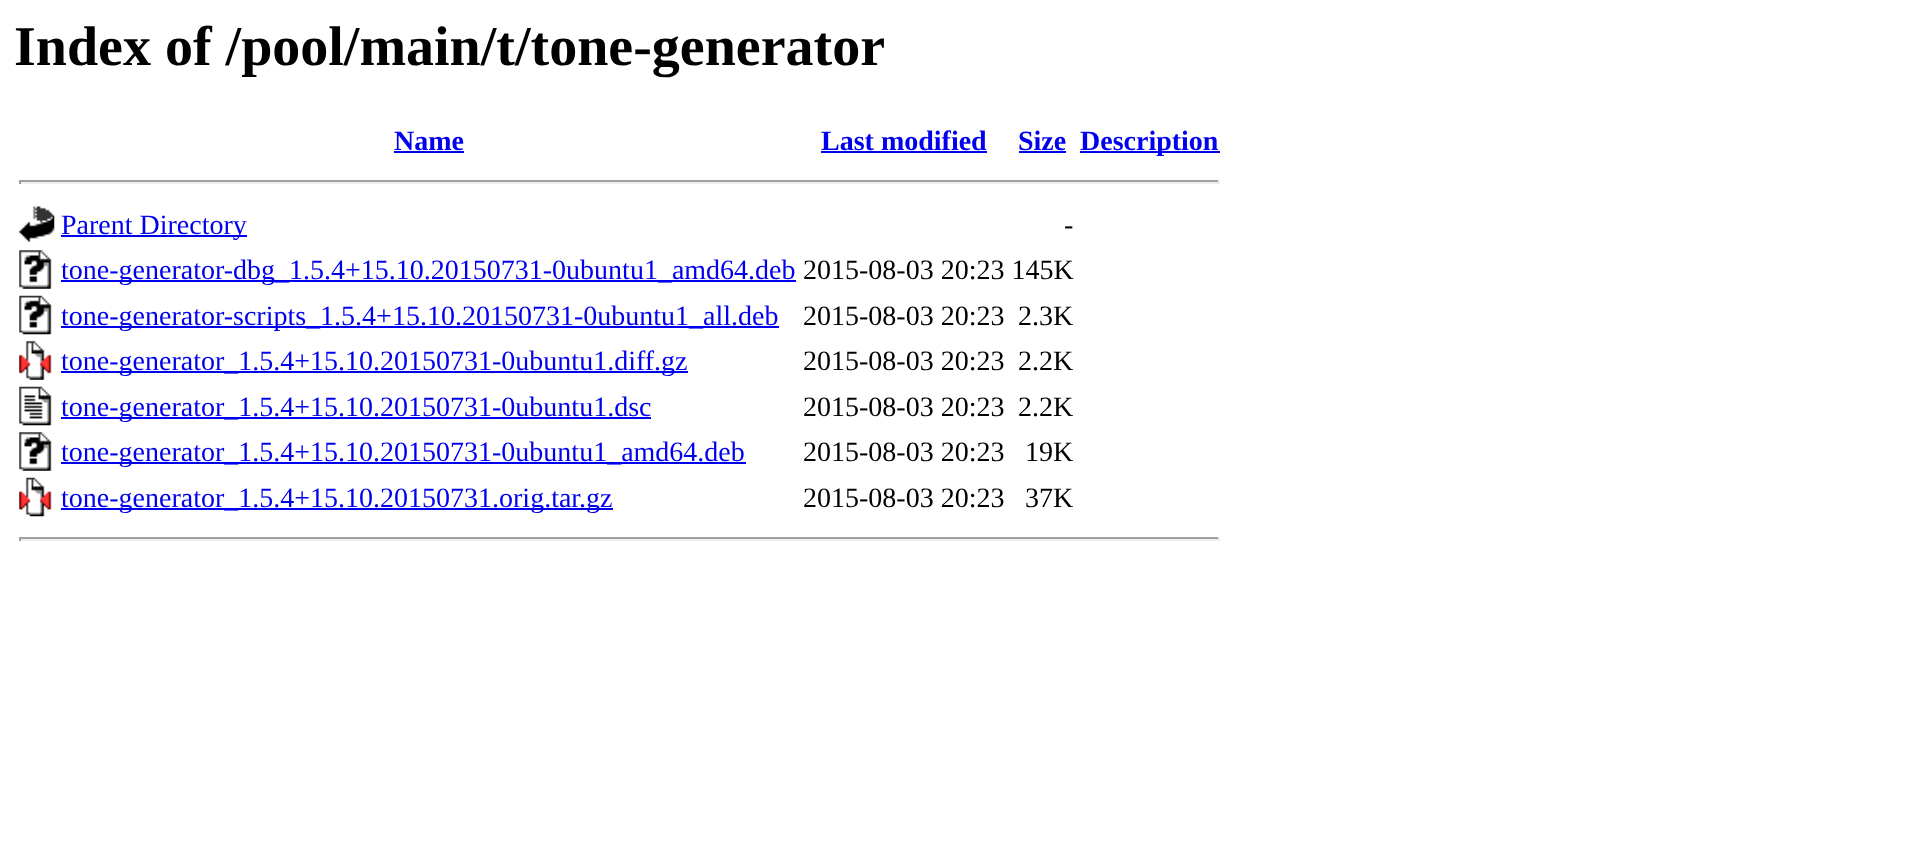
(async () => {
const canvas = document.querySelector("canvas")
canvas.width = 1914
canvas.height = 853
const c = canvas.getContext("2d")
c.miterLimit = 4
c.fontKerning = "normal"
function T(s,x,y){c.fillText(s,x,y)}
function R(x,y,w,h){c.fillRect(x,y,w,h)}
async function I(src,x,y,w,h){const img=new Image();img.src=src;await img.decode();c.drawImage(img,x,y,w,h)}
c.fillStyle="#fff"
R(0,0,1914,853)
c.font="bold 56px Liberation Serif"
c.fillStyle="#000"
T("Index of /pool/main/t/tone-generator",14,65)
c.font="bold 28px Liberation Serif"
c.fillStyle="#00e"
T("Name",394,150)
R(394,151,70,2)
T("Last modified",821,150)
R(821,151,166,2)
T("Size",1018,150)
R(1019,151,47,2)
R(1080,151,140,2)
T("Description",1080,150)
c.fillStyle="#9f9f9f"
R(19,180,1201,2)
c.fillStyle="#eee"
R(1218,180,2,4)
R(19,182,1201,2)
c.fillStyle="#9f9f9f"
R(19,180,2,4)
await I("1.png",19,206,36,36)
c.fillStyle="#00e"
R(61,235,186,2)
c.font="28px Liberation Serif"
T("Parent Directory",61,234)
c.fillStyle="#000"
T("-",1064,234)
await I("2.png",19,250,33,39)
c.fillStyle="#00e"
R(61,280,735,2)
T("tone-generator-dbg_1.5.4+15.10.20150731-0ubuntu1_amd64.deb",61,279)
c.fillStyle="#000"
T("2015-08-03 20:23 145K",803,279)
await I("3.png",19,295,33,40)
c.fillStyle="#00e"
R(61,326,718,2)
T("tone-generator-scripts_1.5.4+15.10.20150731-0ubuntu1_all.deb",61,325)
c.fillStyle="#000"
T("2015-08-03 20:23",803,325)
T("2.3K",1018,325)
await I("4.png",19,341,33,39)
c.fillStyle="#00e"
R(61,371,627,2)
T("tone-generator_1.5.4+15.10.20150731-0ubuntu1.diff.gz",61,370)
c.fillStyle="#000"
T("2015-08-03 20:23",803,370)
T("2.2K",1018,370)
await I("5.png",19,386,33,40)
c.fillStyle="#00e"
R(61,417,590,2)
T("tone-generator_1.5.4+15.10.20150731-0ubuntu1.dsc",61,416)
c.fillStyle="#000"
T("2015-08-03 20:23",803,416)
T("2.2K",1018,416)
await I("2.png",19,432,33,39)
c.fillStyle="#00e"
R(61,462,685,2)
T("tone-generator_1.5.4+15.10.20150731-0ubuntu1_amd64.deb",61,461)
c.fillStyle="#000"
T("2015-08-03 20:23",803,461)
T("19K",1025,461)
await I("6.png",19,477,33,40)
c.fillStyle="#00e"
R(61,508,552,2)
T("tone-generator_1.5.4+15.10.20150731.orig.tar.gz",61,507)
c.fillStyle="#000"
T("2015-08-03 20:23",803,507)
T("37K",1025,507)
c.fillStyle="#9f9f9f"
R(19,537,1201,2)
c.fillStyle="#eee"
R(1218,537,2,4)
R(19,539,1201,2)
c.fillStyle="#9f9f9f"
R(19,537,2,4)
})()
